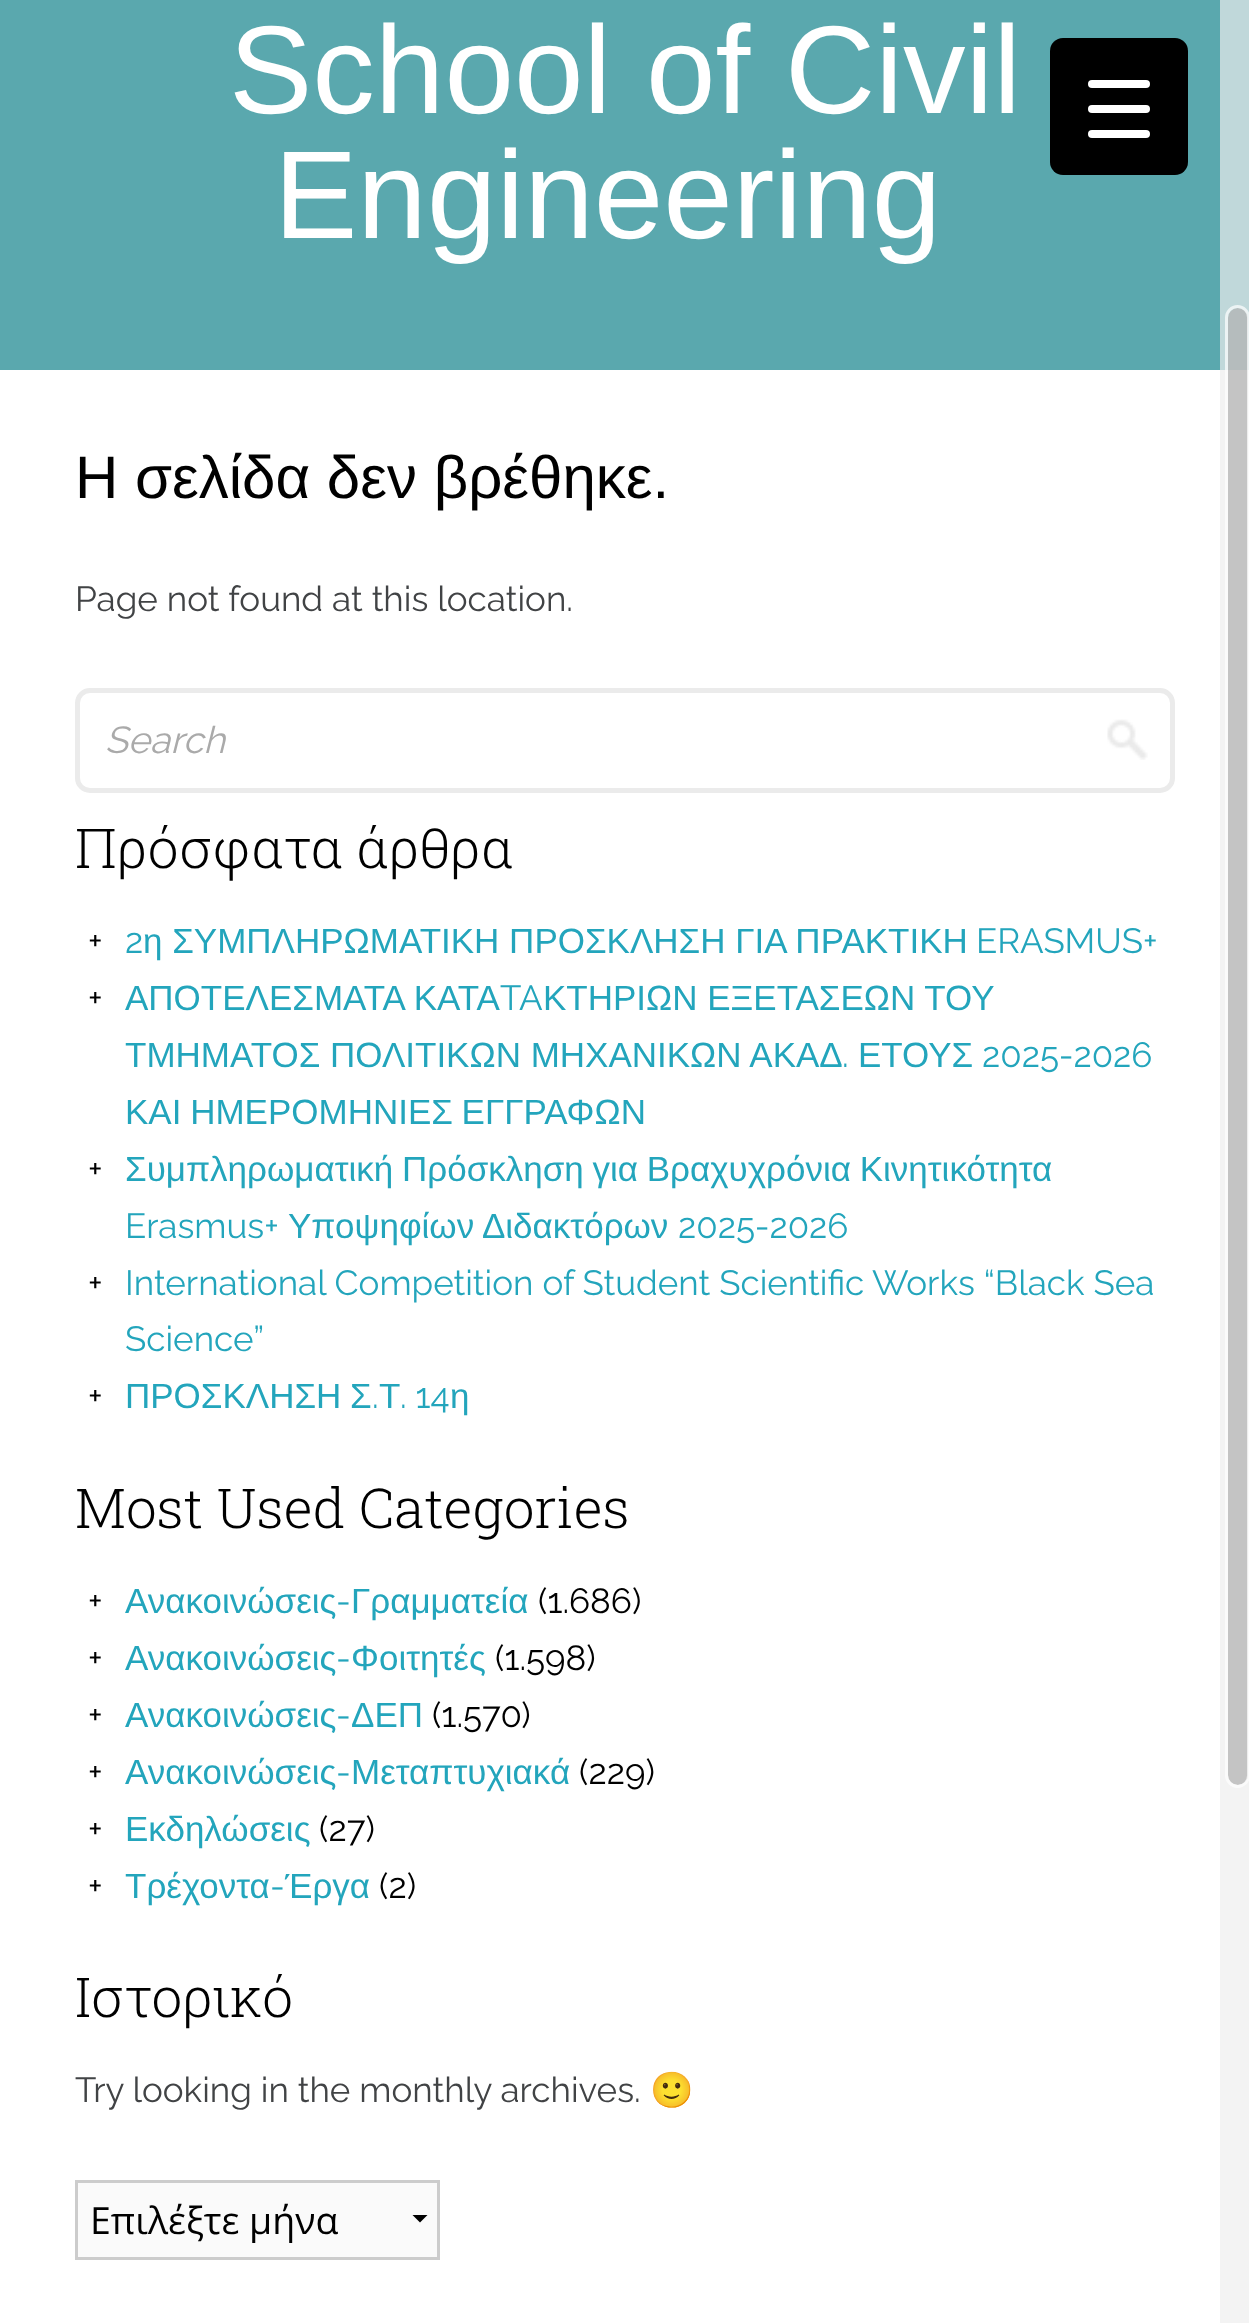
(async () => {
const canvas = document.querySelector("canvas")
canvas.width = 1249
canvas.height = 2323
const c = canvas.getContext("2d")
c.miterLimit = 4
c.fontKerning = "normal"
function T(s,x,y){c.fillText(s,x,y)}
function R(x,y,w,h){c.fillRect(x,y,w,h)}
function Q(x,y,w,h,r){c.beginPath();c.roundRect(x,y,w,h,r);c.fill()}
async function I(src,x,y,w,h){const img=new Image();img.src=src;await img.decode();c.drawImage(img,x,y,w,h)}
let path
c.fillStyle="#fff"
R(0,0,1249,2323)
c.fillStyle="#f3f3f3"
R(1220,370,29,1953)
c.fillStyle="#5aa8ae"
R(0,0,1220,370)
c.fillStyle="#c0d8da"
R(1220,0,29,370)
c.font="125px Liberation Sans"
c.fillStyle="#fff"
T("School of Civil",229,113)
T("Engineering",274,238)
c.font="60px Liberation Sans"
c.fillStyle="#000"
T("Η σελίδα δεν βρέθηκε.",75,498)
c.font="35px Raleway"
c.fillStyle="#414345"
T("Page not found at this location.",75,611)
c.beginPath()
c.roundRect(77.5,690.5,1095,100,12.5)
c.strokeStyle="#ebebeb"
c.lineWidth=5
c.stroke()
await I("1.png",1107,719,41,41)
c.font="italic 37.5px Raleway"
c.fillStyle="#aaa"
T("Search",105,753)
c.font="300 55px Roboto Slab"
c.fillStyle="#000"
T("Πρόσφατα άρθρα",75,868)
c.font="35px Raleway"
T("+",88,953)
c.fillStyle="#23a5bc"
T("2",125,953)
c.font="35px Liberation Sans"
T("η ΣΥΜΠΛΗΡΩΜΑΤΙΚΗ ΠΡΟΣΚΛΗΣΗ ΓΙΑ ΠΡΑΚΤΙΚΗ",143,953)
c.font="35px Raleway"
T("ERASMUS+",976,953)
c.fillStyle="#000"
T("+",88,1010)
c.font="35px Liberation Sans"
c.fillStyle="#23a5bc"
T("ΑΠΟΤΕΛΕΣΜΑΤΑ ΚΑΤΑ",125,1010)
c.font="35px Raleway"
T("TA",500,1010)
c.font="35px Liberation Sans"
T("ΚΤΗΡΙΩΝ ΕΞΕΤΑΣΕΩΝ ΤΟΥ",543,1010)
T("ΤΜΗΜΑΤΟΣ ΠΟΛΙΤΙΚΩΝ ΜΗΧΑΝΙΚΩΝ ΑΚΑΔ",125,1067)
c.font="35px Raleway"
T(".",842,1067)
c.font="35px Liberation Sans"
T("ΕΤΟΥΣ",858,1067)
c.font="35px Raleway"
T("2025-2026",982,1067)
c.wordSpacing="-1px"
c.font="35px Liberation Sans"
T("ΚΑΙ ΗΜΕΡΟΜΗΝΙΕΣ ΕΓΓΡΑΦΩΝ",125,1124)
c.wordSpacing="0px"
c.font="35px Raleway"
c.fillStyle="#000"
T("+",88,1181)
c.wordSpacing="-1px"
c.font="35px Liberation Sans"
c.fillStyle="#23a5bc"
T("Συμπληρωματική Πρόσκληση για Βραχυχρόνια Κινητικότητα",125,1181)
c.wordSpacing="0px"
c.font="35px Raleway"
T("Erasmus+",125,1238)
c.font="35px Liberation Sans"
T("Υποψηφίων Διδακτόρων",288,1238)
c.font="35px Raleway"
T("2025-2026",678,1238)
c.fillStyle="#000"
T("+",88,1295)
c.fillStyle="#23a5bc"
T("International Competition of Student Scientific Works “Black Sea",125,1295)
T("Science”",125,1351)
c.fillStyle="#000"
T("+",88,1408)
c.font="35px Liberation Sans"
c.fillStyle="#23a5bc"
T("ΠΡΟΣΚΛΗΣΗ",125,1408)
T("Σ",350,1408)
c.font="35px Raleway"
T(".",372,1408)
c.font="35px Liberation Sans"
T("Τ",379,1408)
c.font="35px Raleway"
T(". 14",400,1408)
c.font="35px Liberation Sans"
T("η",450,1408)
c.font="300 55px Roboto Slab"
c.fillStyle="#000"
T("Most Used Categories",75,1528)
c.font="35px Raleway"
T("+",88,1613)
c.font="35px Liberation Sans"
c.fillStyle="#23a5bc"
T("Ανακοινώσεις",125,1613)
c.font="35px Raleway"
T("-",336,1613)
c.font="35px Liberation Sans"
T("Γραμματεία",351,1613)
c.font="35px Raleway"
c.fillStyle="#000"
T("(1.686)",538,1613)
T("+",88,1670)
c.font="35px Liberation Sans"
c.fillStyle="#23a5bc"
T("Ανακοινώσεις",125,1670)
c.font="35px Raleway"
T("-",336,1670)
c.font="35px Liberation Sans"
T("Φοιτητές",351,1670)
c.font="35px Raleway"
c.fillStyle="#000"
T("(1.598)",495,1670)
T("+",88,1727)
c.font="35px Liberation Sans"
c.fillStyle="#23a5bc"
T("Ανακοινώσεις",125,1727)
c.font="35px Raleway"
T("-",336,1727)
c.font="35px Liberation Sans"
T("ΔΕΠ",351,1727)
c.font="35px Raleway"
c.fillStyle="#000"
T("(1.570)",432,1727)
T("+",88,1784)
c.font="35px Liberation Sans"
c.fillStyle="#23a5bc"
T("Ανακοινώσεις",125,1784)
c.font="35px Raleway"
T("-",336,1784)
c.font="35px Liberation Sans"
T("Μεταπτυχιακά",351,1784)
c.font="35px Raleway"
c.fillStyle="#000"
T("(229)",579,1784)
T("+",88,1841)
c.font="35px Liberation Sans"
c.fillStyle="#23a5bc"
T("Εκδηλώσεις",125,1841)
c.font="35px Raleway"
c.fillStyle="#000"
T("(27)",319,1841)
T("+",88,1898)
c.font="35px Liberation Sans"
c.fillStyle="#23a5bc"
T("Τρέχοντα",125,1898)
c.font="35px Raleway"
T("-",270,1898)
c.font="35px Liberation Sans"
T("Έργα",285,1898)
c.font="35px Raleway"
c.fillStyle="#000"
T("(2)",379,1898)
c.font="300 55px Roboto Slab"
T("Ιστορικό",75,2017)
c.font="35px Raleway"
c.fillStyle="#414345"
T("Try looking in the monthly archives.",75,2102)
c.font="35px Noto Color Emoji"
T("🙂",650,2102)
c.fillStyle="#fafafa"
R(78,2183,359,74)
c.fillStyle="#000"
path = new Path2D("M427.5 2215l-7.5 7.5l-7.5-7.5z")
c.fill(path)
c.strokeStyle="#ccc"
c.lineWidth=3
c.strokeRect(76.5,2181.5,362,77)
c.font="37.5px Open Sans"
T("Επιλέξτε μήνα",90,2234)
Q(1050,38,138,137,13)
c.fillStyle="#fff"
Q(1088,105,62,8,4)
Q(1088,80,62,8,4)
Q(1088,130,62,8,4)
c.fillStyle="#afafafb0"
Q(1228,308,20,1477,10)
c.beginPath()
c.roundRect(1226.5,306.5,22,1480,11)
c.strokeStyle="#ffffffb0"
c.stroke()
})()
